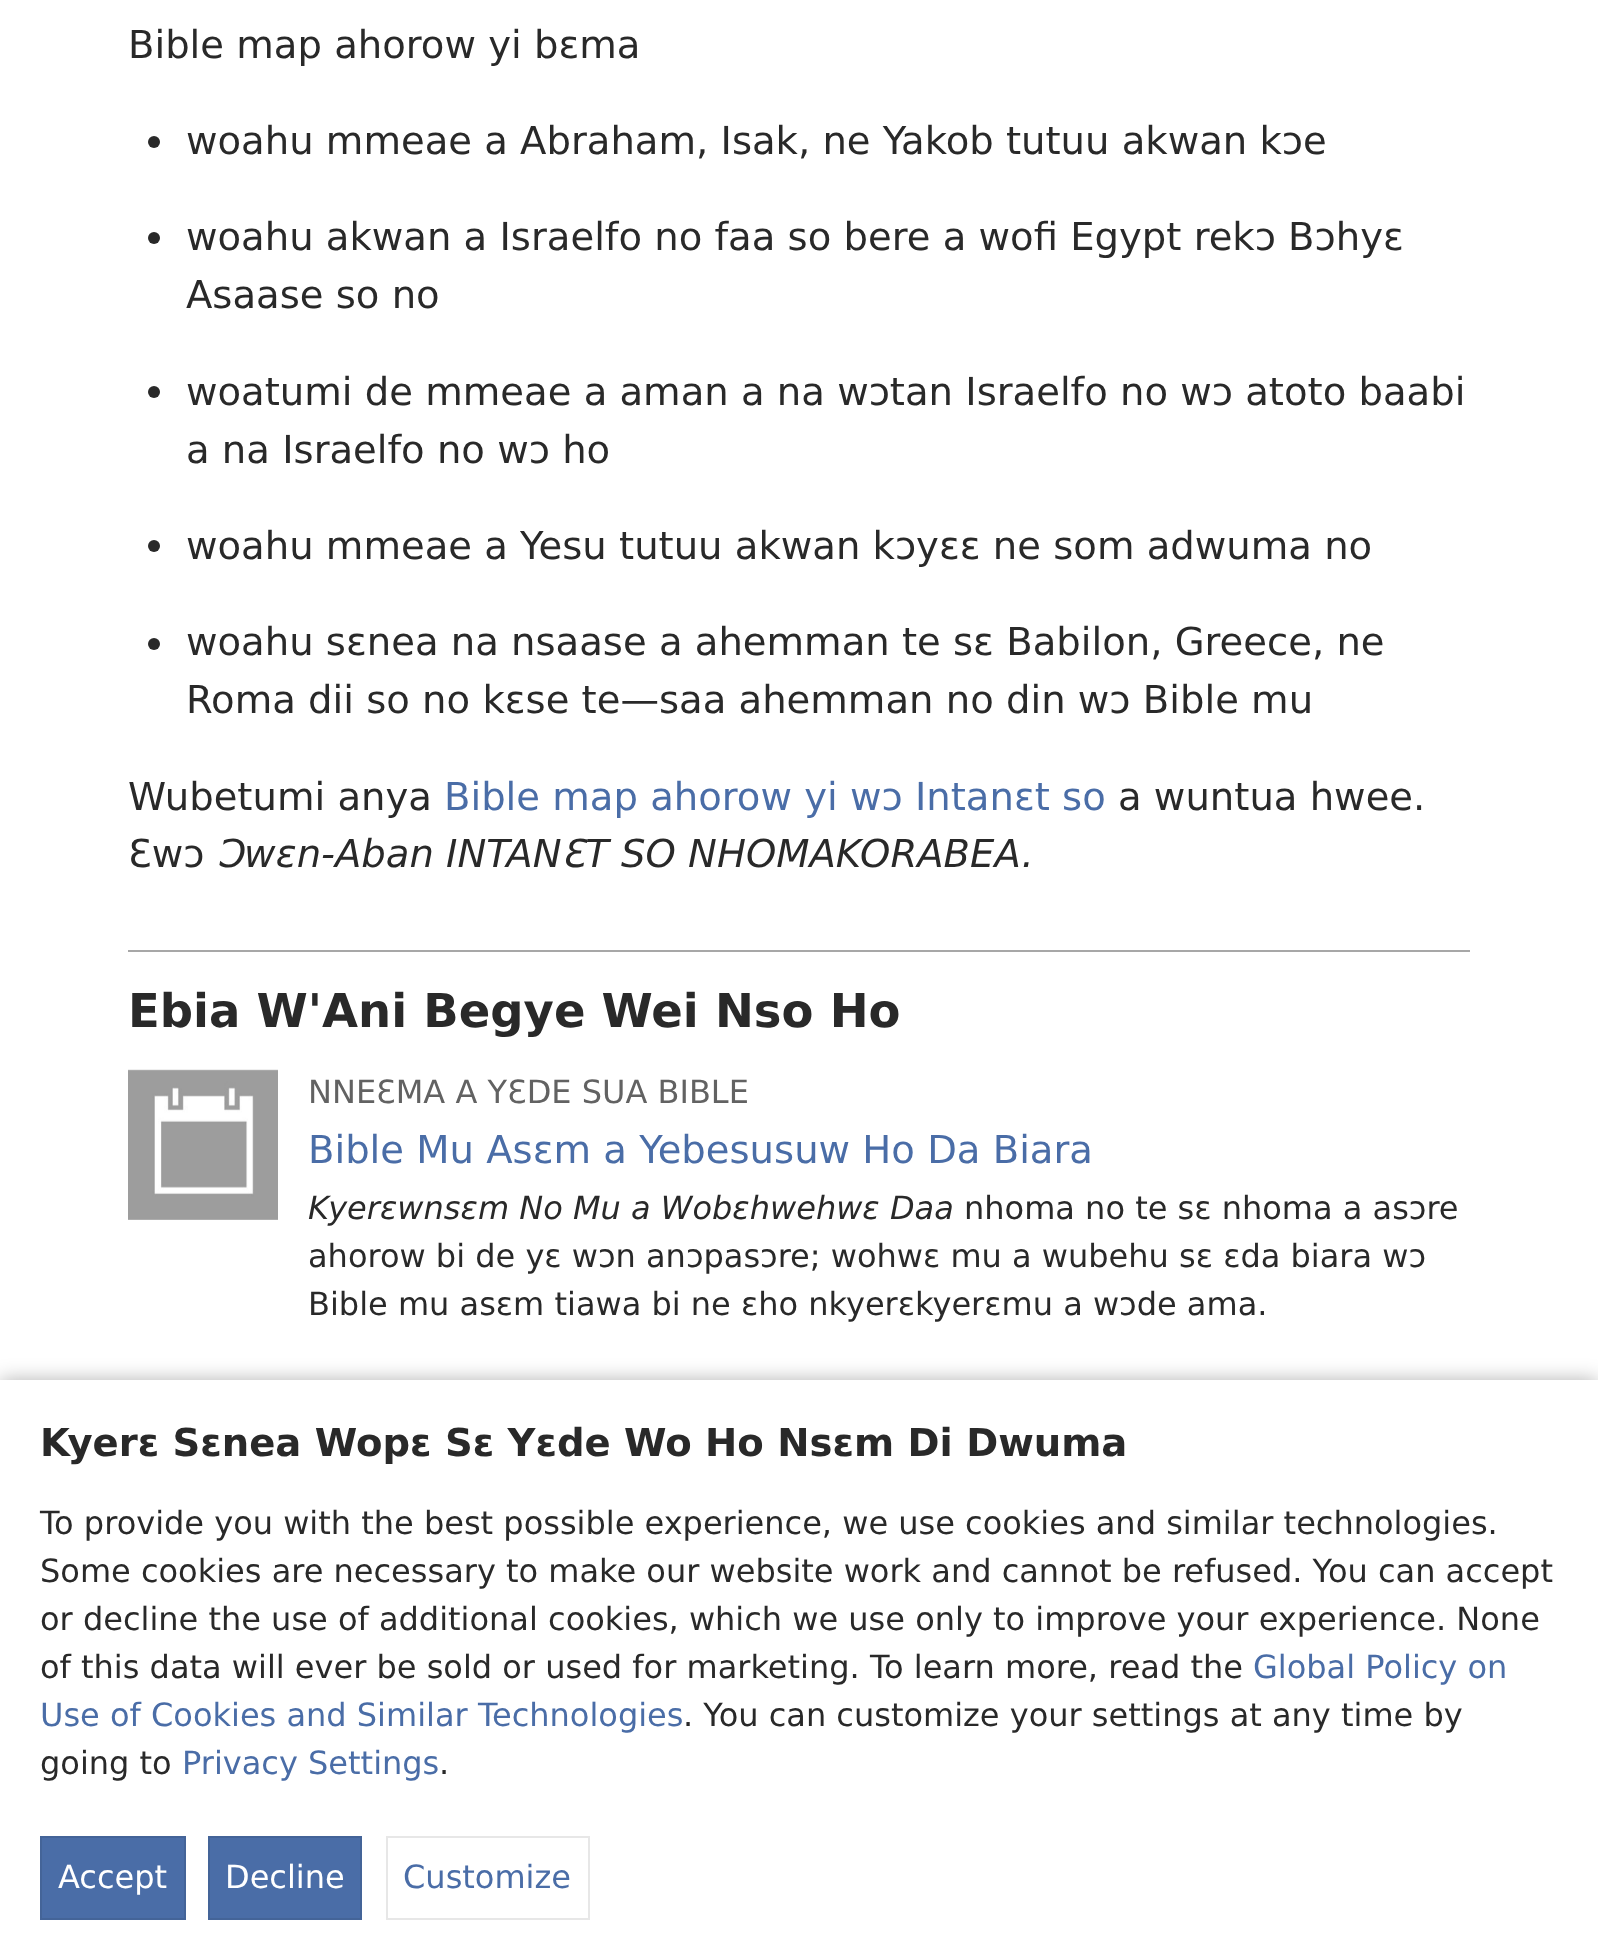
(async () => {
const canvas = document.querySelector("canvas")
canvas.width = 1598
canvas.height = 1959
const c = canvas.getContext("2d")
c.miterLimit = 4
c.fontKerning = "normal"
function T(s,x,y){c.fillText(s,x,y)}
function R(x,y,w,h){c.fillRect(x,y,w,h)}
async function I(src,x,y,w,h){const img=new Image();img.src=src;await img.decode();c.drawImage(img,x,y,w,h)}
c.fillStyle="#fff"
R(0,0,1598,1959)
c.font="38.55px DejaVu Sans"
c.fillStyle="#292929"
T("Bible map ahorow yi bɛma",128,58)
c.beginPath()
c.arc(154,142,6,0,7)
c.fill()
T("woahu mmeae a Abraham, Isak, ne Yakob tutuu akwan kɔe",186,154)
c.beginPath()
c.arc(154,238,6,0,7)
c.fill()
T("woahu akwan a Israelfo no faa so bere a wofi Egypt rekɔ Bɔhyɛ",186,250)
T("Asaase so no",186,308)
c.beginPath()
c.arc(154,392,6,0,7)
c.fill()
T("woatumi de mmeae a aman a na wɔtan Israelfo no wɔ atoto baabi",186,405)
T("a na Israelfo no wɔ ho",186,463)
c.beginPath()
c.arc(154,546,6,0,7)
c.fill()
T("woahu mmeae a Yesu tutuu akwan kɔyɛɛ ne som adwuma no",186,559)
c.beginPath()
c.arc(154,644,6,0,7)
c.fill()
T("woahu sɛnea na nsaase a ahemman te sɛ Babilon, Greece, ne",186,655)
T("Roma dii so no kɛse te—saa ahemman no din wɔ Bible mu",186,713)
T("Wubetumi anya",128,810)
c.fillStyle="#4a6da7"
T("Bible map ahorow yi wɔ Intanɛt so",444,810)
c.fillStyle="#292929"
T("a wuntua hwee.",1118,810)
T("Ɛwɔ",128,867)
c.font="italic 38.55px DejaVu Sans"
T("Ɔwɛn-Aban INTANƐT SO NHOMAKORABEA.",217,867)
c.fillStyle="#a7a7a7"
R(128,950,1342,2)
c.font="bold 46.5px DejaVu Sans"
c.fillStyle="#292929"
T("Ebia W'Ani Begye Wei Nso Ho",128,1027)
await I("1.png",128,1069,150,151)
c.font="32px DejaVu Sans"
c.fillStyle="#626262"
T("NNEƐMA A YƐDE SUA BIBLE",308,1103)
c.font="38.55px DejaVu Sans"
c.fillStyle="#4a6da7"
T("Bible Mu Asɛm a Yebesusuw Ho Da Biara",308,1163)
c.font="italic 32px DejaVu Sans"
c.fillStyle="#292929"
T("Kyerɛwnsɛm No Mu a Wobɛhwehwɛ Daa",308,1219)
c.font="32px DejaVu Sans"
T("nhoma no te sɛ nhoma a asɔre",964,1219)
T("ahorow bi de yɛ wɔn anɔpasɔre; wohwɛ mu a wubehu sɛ ɛda biara wɔ",308,1267)
T("Bible mu asɛm tiawa bi ne ɛho nkyerɛkyerɛmu a wɔde ama.",308,1315)
c.fillStyle="#0000004d"
c.filter="blur(10px)"
c.beginPath()
c.rect(0,1380,1598,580)
c.fill()
c.filter="none"
c.fillStyle="#fff"
R(0,1380,1598,579)
c.font="bold 38.55px DejaVu Sans"
c.fillStyle="#292929"
T("Kyerɛ Sɛnea Wopɛ Sɛ Yɛde Wo Ho Nsɛm Di Dwuma",40,1456)
c.font="32px DejaVu Sans"
T("To provide you with the best possible experience, we use cookies and similar technologies.",40,1534)
T("Some cookies are necessary to make our website work and cannot be refused. You can accept",40,1582)
T("or decline the use of additional cookies, which we use only to improve your experience. None",40,1630)
T("of this data will ever be sold or used for marketing. To learn more, read the",40,1678)
c.fillStyle="#4a6da7"
T("Global Policy on",1253,1678)
T("Use of Cookies and Similar Technologies",40,1726)
c.fillStyle="#292929"
T(". You can customize your settings at any time by",683,1726)
T("going to",40,1774)
c.fillStyle="#4a6da7"
T("Privacy Settings",182,1774)
c.fillStyle="#292929"
T(".",439,1774)
c.fillStyle="#4a6da7"
c.beginPath()
c.rect(41,1837,144,82)
c.fill()
c.strokeStyle="#446498"
c.lineWidth=2
c.stroke()
c.fillStyle="#fff"
T("Accept",58,1888)
c.fillStyle="#4a6da7"
c.beginPath()
c.rect(209,1837,152,82)
c.fill()
c.stroke()
c.fillStyle="#fff"
T("Decline",225,1888)
c.strokeStyle="#e7e7e7"
c.strokeRect(387,1837,202,82)
c.fillStyle="#4a6da7"
T("Customize",403,1888)
})()
